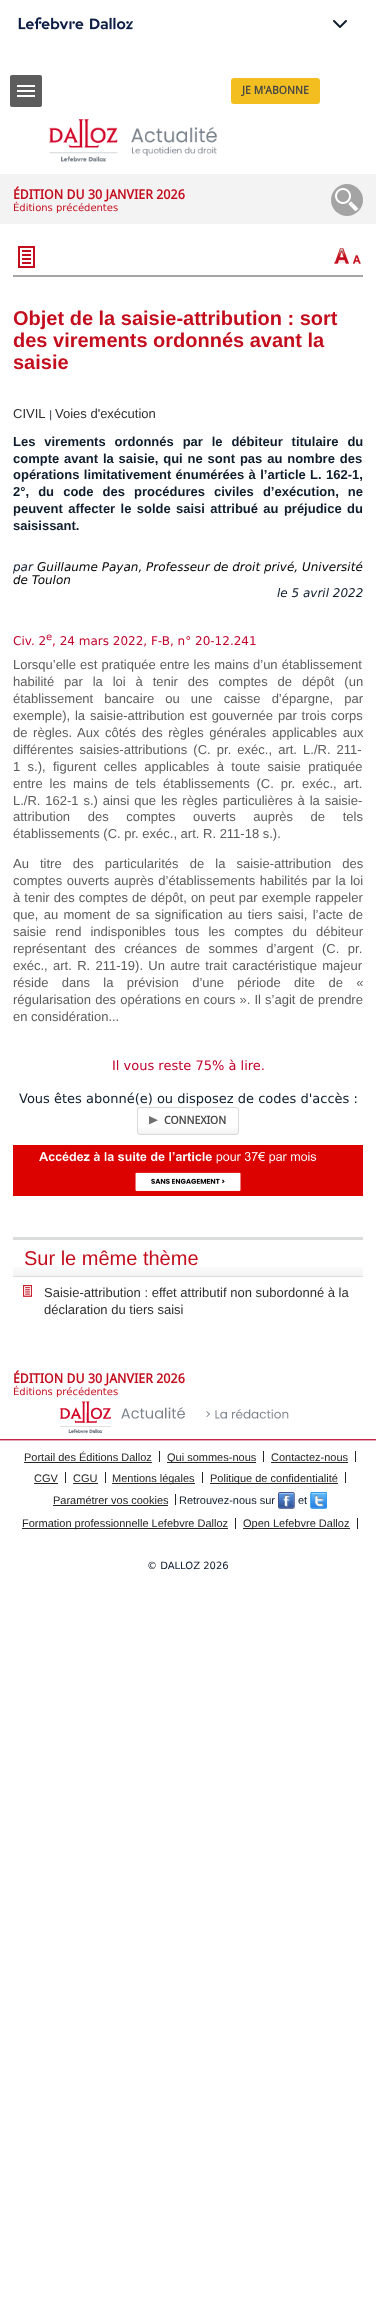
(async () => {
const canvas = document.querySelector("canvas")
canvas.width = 376
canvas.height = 2322
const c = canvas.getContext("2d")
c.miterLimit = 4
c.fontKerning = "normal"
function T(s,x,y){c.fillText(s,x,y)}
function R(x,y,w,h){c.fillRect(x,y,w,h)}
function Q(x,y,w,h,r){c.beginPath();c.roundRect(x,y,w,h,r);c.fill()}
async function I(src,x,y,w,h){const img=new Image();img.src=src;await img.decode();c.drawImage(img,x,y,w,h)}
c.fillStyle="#fff"
R(0,0,376,2322)
await I("1.png",18,17,116,13)
await I("2.png",333,20,14,8)
c.fillStyle="#5d5d5d"
Q(10,75,32,32,2)
c.fillStyle="#fff"
R(17,90,18,2)
R(17,85,18,2)
R(17,95,18,2)
c.fillStyle="#f2be20"
Q(231,78,89,26,3)
c.font="bold 11px Droid Sans"
c.fillStyle="#484848"
T("JE M'ABONNE",242,94)
await I("3.png",49,119,169,43)
c.fillStyle="#f3f3f3"
R(0,174,376,50)
c.font="bold 13px Droid Sans"
c.fillStyle="#c40e1e"
T("ÉDITION DU 30 JANVIER 2026",13,199)
c.font="10px DejaVu Sans"
T("Éditions précédentes",13,211)
c.fillStyle="#a4a4a4"
c.beginPath()
c.arc(347,200,16,0,7)
c.fill()
await I("4.png",335,188,24,24)
await I("5.png",18,246,17,22)
c.fillStyle="#a5a5a5"
R(13,275,350,2)
await I("6.png",334,248,15,16)
await I("7.png",353,255,8,9)
c.font="bold 20px Liberation Sans"
c.fillStyle="#c40e1e"
T("Objet de la saisie-attribution : sort",13,325)
T("des virements ordonnés avant la",13,347)
T("saisie",13,369)
c.font="13px Liberation Sans"
c.fillStyle="#2e2e2e"
T("CIVIL",13,418)
c.font="10px DejaVu Sans"
c.fillStyle="#0e1c2c"
T("|",49,418)
c.font="13px Liberation Sans"
c.fillStyle="#2e2e2e"
T("Voies d'exécution",55,418)
c.wordSpacing="5.25px"
c.font="bold 13px Liberation Sans"
c.fillStyle="#0e1c2c"
T("Les virements ordonnés par le débiteur titulaire du",13,446)
c.wordSpacing="1.25px"
T("compte avant la saisie, qui ne sont pas au nombre des",13,463)
c.wordSpacing="0.75px"
T("opérations limitativement énumérées à l’article L. 162-1,",13,479)
c.wordSpacing="5.5px"
T("2°, du code des procédures civiles d’exécution, ne",13,496)
c.wordSpacing="1.75px"
T("peuvent affecter le solde saisi attribué au préjudice du",13,513)
c.wordSpacing="0px"
T("saisissant.",13,530)
c.font="italic 12px DejaVu Sans"
T("par",13,571)
c.fillStyle="#000"
T("Guillaume Payan, Professeur de droit privé, Université",37,571)
T("de Toulon",13,584)
c.fillStyle="#0e1c2c"
T("le 5 avril 2022",277,597)
c.font="12px DejaVu Sans"
c.fillStyle="#c1022c"
T("Civ. 2",13,645)
c.font="10px DejaVu Sans"
T("e",46,640)
c.font="12px DejaVu Sans"
T(", 24 mars 2022, F-B, n° 20-12.241",52,645)
c.wordSpacing="0.5px"
c.font="13px Liberation Sans"
c.fillStyle="#5c5c5c"
T("Lorsqu’elle est pratiquée entre les mains d’un établissement",13,669)
c.wordSpacing="6.25px"
T("habilité par la loi à tenir des comptes de dépôt (un",13,686)
c.wordSpacing="7.5px"
T("établissement bancaire ou une caisse d’épargne, par",13,703)
c.wordSpacing="1.25px"
T("exemple), la saisie-attribution est gouvernée par trois corps",13,720)
c.wordSpacing="2px"
T("de règles. Aux côtés des règles générales applicables aux",13,737)
c.wordSpacing="2.5px"
T("différentes saisies-attributions (C. pr. exéc., art. L./R. 211-",13,754)
c.wordSpacing="3.75px"
T("1 s.), figurent celles applicables à toute saisie pratiquée",13,771)
c.wordSpacing="3.25px"
T("entre les mains de tels établissements (C. pr. exéc., art.",13,788)
c.wordSpacing="1.25px"
T("L./R. 162-1 s.) ainsi que les règles particulières à la saisie-",13,805)
c.wordSpacing="14px"
T("attribution des comptes ouverts auprès de tels",13,821)
c.wordSpacing="0px"
T("établissements (C. pr. exéc., art. R. 211-18 s.).",13,838)
c.wordSpacing="7.5px"
T("Au titre des particularités de la saisie-attribution des",13,868)
c.wordSpacing="1px"
T("comptes ouverts auprès d’établissements habilités par la loi",13,885)
c.wordSpacing="0.5px"
T("à tenir des comptes de dépôt, on peut par exemple rappeler",13,902)
c.wordSpacing="1.75px"
T("que, au moment de sa signification au tiers saisi, l’acte de",13,919)
c.wordSpacing="5.5px"
T("saisie rend indisponibles tous les comptes du débiteur",13,936)
c.wordSpacing="5px"
T("représentant des créances de sommes d’argent (C. pr.",13,953)
c.wordSpacing="1.75px"
T("exéc., art. R. 211-19). Un autre trait caractéristique majeur",13,970)
c.wordSpacing="9.75px"
T("réside dans la prévision d’une période dite de «",13,987)
c.wordSpacing="0.5px"
T("régularisation des opérations en cours ». Il s’agit de prendre",13,1004)
c.wordSpacing="0px"
T("en considération...",13,1021)
c.font="13px DejaVu Sans"
c.fillStyle="#c1022c"
T("Il vous reste 75% à lire.",112,1070)
c.fillStyle="#0e1c2c"
T("Vous êtes abonné(e) ou disposez de codes d'accès :",19,1103)
await I("9.png",138,1128,100,6)
c.beginPath()
c.roundRect(137.5,1107.5,101,27,2.5)
c.strokeStyle="#d9d9d9"
c.stroke()
await I("8.png",149,1116,9,9)
c.font="bold 11px Droid Sans"
c.fillStyle="#484848"
T("CONNEXION",164,1124)
await I("10.png",13,1145,350,51)
await I("11.png",13,1267,350,9)
c.fillStyle="#dbdcdc"
R(13,1237,350,3)
R(13,1276,350,1)
c.font="20px Liberation Sans"
c.fillStyle="#c40e1e"
T("Sur le même thème",24,1265)
await I("12.png",23,1285,9,12)
c.font="13px Liberation Sans"
c.fillStyle="#2e2e2e"
T("Saisie-attribution : effet attributif non subordonné à la",44,1297)
T("déclaration du tiers saisi",44,1314)
await I("13.png",0,1439,376,2)
c.font="bold 13px Droid Sans"
c.fillStyle="#c40e1e"
T("ÉDITION DU 30 JANVIER 2026",13,1383)
c.font="10px DejaVu Sans"
T("Éditions précédentes",13,1395)
await I("14.png",60,1401,229,32)
c.font="11px Liberation Sans"
c.fillStyle="#252525"
T("Portail des Éditions Dalloz",24,1461)
c.fillStyle="#242424"
R(159,1451,1,11)
c.fillStyle="#252525"
R(24,1462,128,1)
R(167,1462,89,1)
T("Qui sommes-nous",167,1461)
c.fillStyle="#242424"
R(263,1451,1,11)
c.fillStyle="#252525"
T("Contactez-nous",271,1461)
c.fillStyle="#242424"
R(355,1451,1,11)
c.fillStyle="#252525"
R(271,1462,77,1)
T("CGV",34,1482)
c.fillStyle="#242424"
R(65,1472,1,11)
c.fillStyle="#252525"
R(34,1483,24,1)
T("CGU",73,1482)
c.fillStyle="#242424"
R(105,1472,1,11)
c.fillStyle="#252525"
R(73,1483,25,1)
R(112,1483,83,1)
T("Mentions légales",112,1482)
c.fillStyle="#242424"
R(202,1472,1,11)
c.fillStyle="#252525"
R(210,1483,128,1)
T("Politique de confidentialité",210,1482)
c.fillStyle="#242424"
R(345,1472,1,11)
c.fillStyle="#252525"
T("Paramétrer vos cookies",53,1504)
c.fillStyle="#242424"
R(175,1494,1,11)
c.fillStyle="#252525"
R(53,1505,115,1)
c.fillStyle="#0e1c2c"
T("Retrouvez-nous sur",179,1504)
await I("15.png",278,1492,17,17)
T("et",298,1504)
await I("16.png",310,1492,17,17)
c.fillStyle="#252525"
R(22,1528,206,1)
T("Formation professionnelle Lefebvre Dalloz",22,1527)
c.fillStyle="#242424"
R(235,1518,1,11)
c.fillStyle="#252525"
R(243,1528,107,1)
T("Open Lefebvre Dalloz",243,1527)
c.fillStyle="#242424"
R(357,1518,1,11)
c.font="10px DejaVu Sans"
c.fillStyle="#0e1c2c"
T("© DALLOZ 2026",147,1569)
})()
